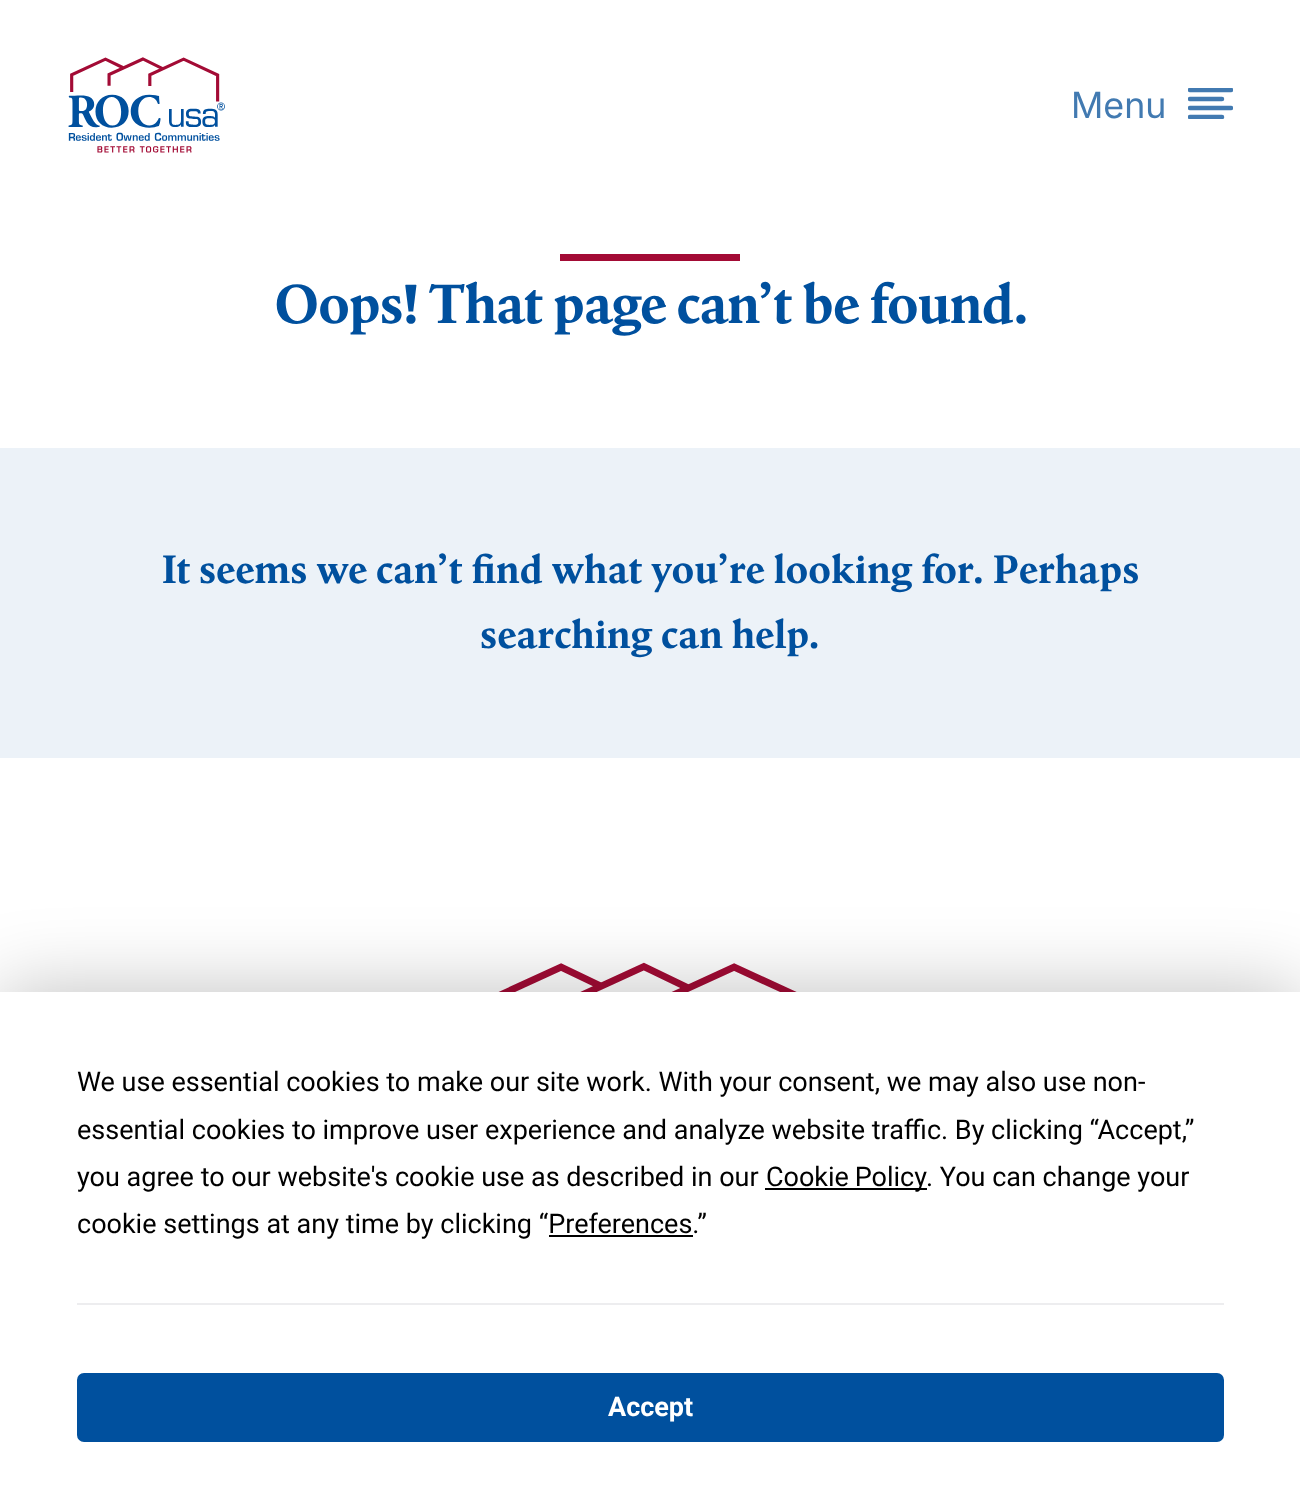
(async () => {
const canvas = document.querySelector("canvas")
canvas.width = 1300
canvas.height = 1509
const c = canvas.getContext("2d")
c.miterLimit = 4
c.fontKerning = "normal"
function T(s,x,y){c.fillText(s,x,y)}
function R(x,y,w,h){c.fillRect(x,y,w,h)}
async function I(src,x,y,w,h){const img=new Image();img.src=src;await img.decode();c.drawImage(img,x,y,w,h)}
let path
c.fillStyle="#fff"
R(0,0,1300,1509)
await I("1.png",68,57,157,96)
c.font="36px Inter"
c.fillStyle="#427ab1"
T("Menu",1071,118)
c.save()
c.beginPath()
c.rect(1188,88,45,31)
c.clip()
path = new Path2D("M1222 99h-32m41-9h-41m41 18h-41m32 9h-32")
c.strokeStyle="#427ab1"
c.lineWidth=4.5
c.lineCap="round"
c.lineJoin="round"
c.stroke(path)
c.restore()
c.fillStyle="#a30b35"
R(560,254,180,7)
c.letterSpacing="-1.1px"
c.font="bold 56.25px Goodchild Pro"
c.fillStyle="#00509e"
T("Oops! That page can’t be found.",274,323)
c.fillStyle="#ecf2f8"
R(0,448,1300,310)
c.letterSpacing="0px"
c.font="bold 40.5px Goodchild Pro"
c.fillStyle="#00509e"
T("It seems we can’t find what you’re looking for. Perhaps",162,583)
T("searching can help.",480,648)
await I("2.png",498,962,299,30)
c.fillStyle="#00000040"
c.filter="blur(39.5px)"
c.beginPath()
c.rect(0,992,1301,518)
c.fill()
c.filter="none"
c.fillStyle="#fff"
R(0,992,1300,517)
c.font="27px Roboto"
c.fillStyle="#000"
T("We use essential cookies to make our site work. With your consent, we may also use non-",77,1091)
T("essential cookies to improve user experience and analyze website traffic. By clicking “Accept,”",77,1139)
T("you agree to our website's cookie use as described in our",77,1186)
R(765,1188,162,2)
c.wordSpacing="-1px"
T("Cookie Policy",766,1186)
c.wordSpacing="0px"
T(". You can change your",926,1186)
T("cookie settings at any time by clicking “Preferences.”",77,1233)
R(549,1235,144,2)
c.fillStyle="#ededef"
R(77,1303,1147,2)
c.fillStyle="#00509e"
c.beginPath()
c.roundRect(78,1374,1145,67,6)
c.fill()
c.strokeStyle="#00509e"
c.lineWidth=2
c.stroke()
c.font="bold 27px Roboto"
c.fillStyle="#fff"
T("Accept",608,1416)
})()
